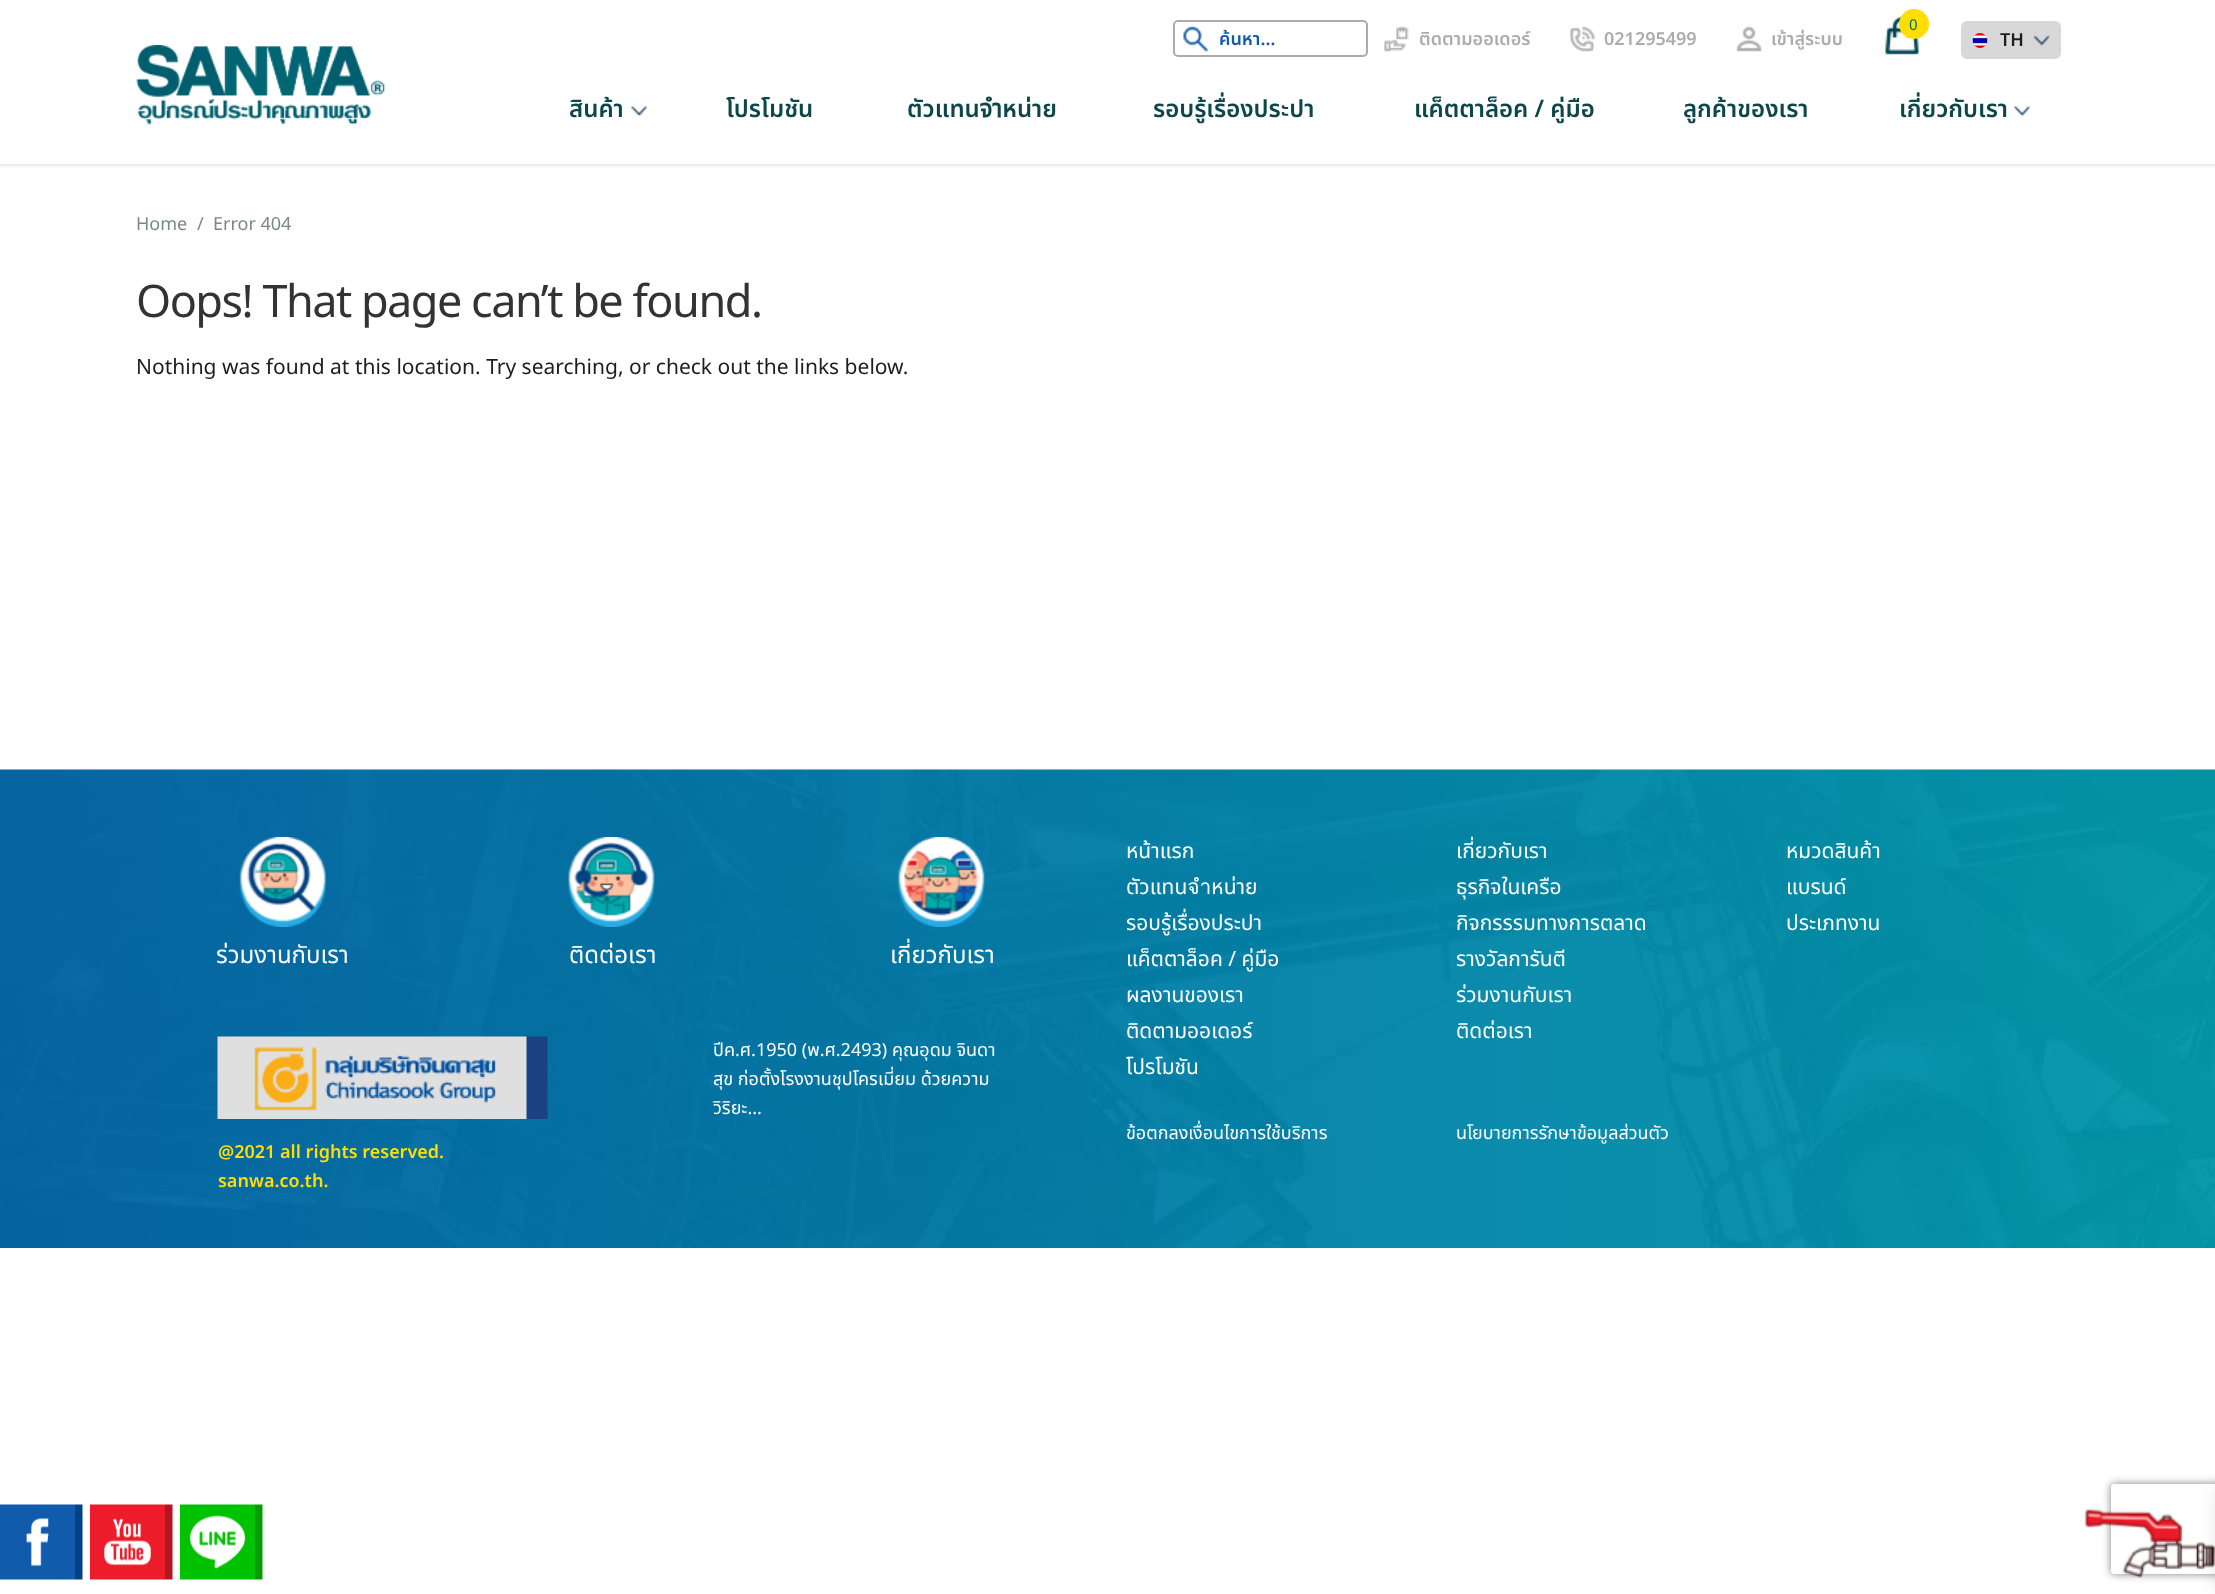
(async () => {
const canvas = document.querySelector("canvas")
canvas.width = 2215
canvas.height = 1594
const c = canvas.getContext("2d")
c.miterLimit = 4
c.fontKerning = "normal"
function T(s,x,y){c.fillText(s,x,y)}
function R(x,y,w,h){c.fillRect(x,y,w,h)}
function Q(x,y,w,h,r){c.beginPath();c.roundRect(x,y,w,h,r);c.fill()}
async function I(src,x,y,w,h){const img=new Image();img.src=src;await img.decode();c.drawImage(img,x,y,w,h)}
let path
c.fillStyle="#fff"
R(0,0,2215,1594)
c.save()
c.beginPath()
c.rect(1,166,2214,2)
c.clip()
c.fillStyle="#0000001a"
c.filter="blur(3px)"
c.beginPath()
c.rect(0,0,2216,165)
c.fill()
c.filter="none"
c.restore()
c.fillStyle="#ededed"
R(0,164,2215,2)
await I("1.png",136,45,249,80)
await I("2.png",1885,16,34,39)
c.fillStyle="#ffde00"
c.beginPath()
c.arc(1914,24,15,0,7)
c.fill()
c.font="15px Noto Sans Thai"
c.fillStyle="#006674"
T("0",1909,30)
c.beginPath()
c.roundRect(1174,21,193,35,4)
c.strokeStyle="#acacac"
c.lineWidth=2
c.stroke()
await I("3.png",1183,26,25,26)
c.save()
c.beginPath()
c.rect(1220,26,126,27)
c.clip()
c.font="600 18px Noto Sans Thai"
c.fillStyle="#105bac"
T("ค้นหา…",1219,45)
c.restore()
await I("4.png",1384,26,25,26)
c.font="600 18px Noto Sans Thai"
c.fillStyle="#acacac"
T("ติดตามออเดอร์",1419,45)
await I("5.png",1570,26,25,26)
T("021295499",1604,45)
await I("6.png",1736,26,26,26)
T("เข้าสู่ระบบ",1771,45)
c.fillStyle="#d8d8d8"
Q(1961,21,100,38,6)
await I("7.png",1972,33,16,15)
c.fillStyle="#1e1e1e"
T("TH",2000,46)
await I("8.png",2033,35,17,11)
c.font="600 24px Noto Sans Thai"
c.fillStyle="#0d464b"
T("สินค้า",569,117)
await I("9.png",631,106,16,10)
T("โปรโมชัน",726,117)
T("ตัวแทนจำหน่าย",907,117)
T("รอบรู้เรื่องประปา",1153,117)
T("แค็ตตาล็อค / คู่มือ",1414,117)
T("ลูกค้าของเรา",1683,117)
T("เกี่ยวกับเรา",1899,117)
await I("10.png",2014,106,16,10)
c.font="18px Noto Sans Thai"
c.fillStyle="#79878e"
T("Home",136,230)
T("/",197,230)
T("Error 404",213,230)
c.letterSpacing="-1.5px"
c.font="45px Noto Sans Thai"
c.fillStyle="#333"
T("Oops! That page can’t be found.",136,317)
c.letterSpacing="0px"
c.font="21px Noto Sans Thai"
c.fillStyle="#1e1e1e"
T("Nothing was found at this location. Try searching, or check out the links below.",136,374)
await I("11.png",0,769,2215,479)
await I("12.png",239,837,87,90)
c.font="24px Noto Sans Thai"
c.fillStyle="#fff"
T("ร่วมงานกับเรา",216,963)
await I("13.png",568,837,87,90)
T("ติดต่อเรา",569,963)
await I("14.png",898,837,87,90)
T("เกี่ยวกับเรา",890,963)
await I("15.png",217,1036,331,83)
c.font="18px Noto Sans Thai"
T("ปีค.ศ.1950 (พ.ศ.2493) คุณอุดม จินดา",713,1056)
T("สุข ก่อตั้งโรงงานชุปโครเมี่ยม ด้วยความ",713,1085)
T("วิริยะ...",713,1114)
c.font="600 18px Noto Sans Thai"
c.fillStyle="#ffde00"
T("@2021 all rights reserved.",218,1158)
T("sanwa.co.th.",218,1187)
c.font="21px Noto Sans Thai"
c.fillStyle="#fff"
T("หน้าแรก",1126,858)
T("ตัวแทนจำหน่าย",1126,894)
T("รอบรู้เรื่องประปา",1126,930)
T("แค็ตตาล็อค / คู่มือ",1126,966)
T("ผลงานของเรา",1126,1002)
T("ติดตามออเดอร์",1126,1038)
T("โปรโมชัน",1126,1074)
T("เกี่ยวกับเรา",1456,858)
T("ธุรกิจในเครือ",1456,894)
T("กิจกรรรมทางการตลาด",1456,930)
T("รางวัลการันตี",1456,966)
T("ร่วมงานกับเรา",1456,1002)
T("ติดต่อเรา",1456,1038)
T("หมวดสินค้า",1786,858)
T("แบรนด์",1786,894)
T("ประเภทงาน",1786,930)
c.font="18px Noto Sans Thai"
T("ข้อตกลงเงื่อนไขการใช้บริการ",1126,1139)
T("นโยบายการรักษาข้อมูลส่วนตัว",1456,1139)
await I("16.png",0,1504,83,76)
await I("17.png",90,1504,83,76)
await I("18.png",180,1504,83,76)
c.save()
path = new Path2D("M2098 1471h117v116h-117zm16 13h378c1.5 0 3 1.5 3 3v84c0 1.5-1.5 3-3 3h-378c-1.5 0-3-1.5-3-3v-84c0-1.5 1.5-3 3-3z")
c.clip(path,"evenodd")
c.fillStyle="#808080"
c.filter="blur(4px)"
c.beginPath()
c.roundRect(2111,1484,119,90,3)
c.fill()
c.filter="none"
c.restore()
await I("19.png",2084,1508,131,70)
c.fillStyle="#0000001a"
c.filter="blur(7.5px)"
c.beginPath()
c.rect(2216,1487,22,106)
c.fill()
c.filter="none"
})()
